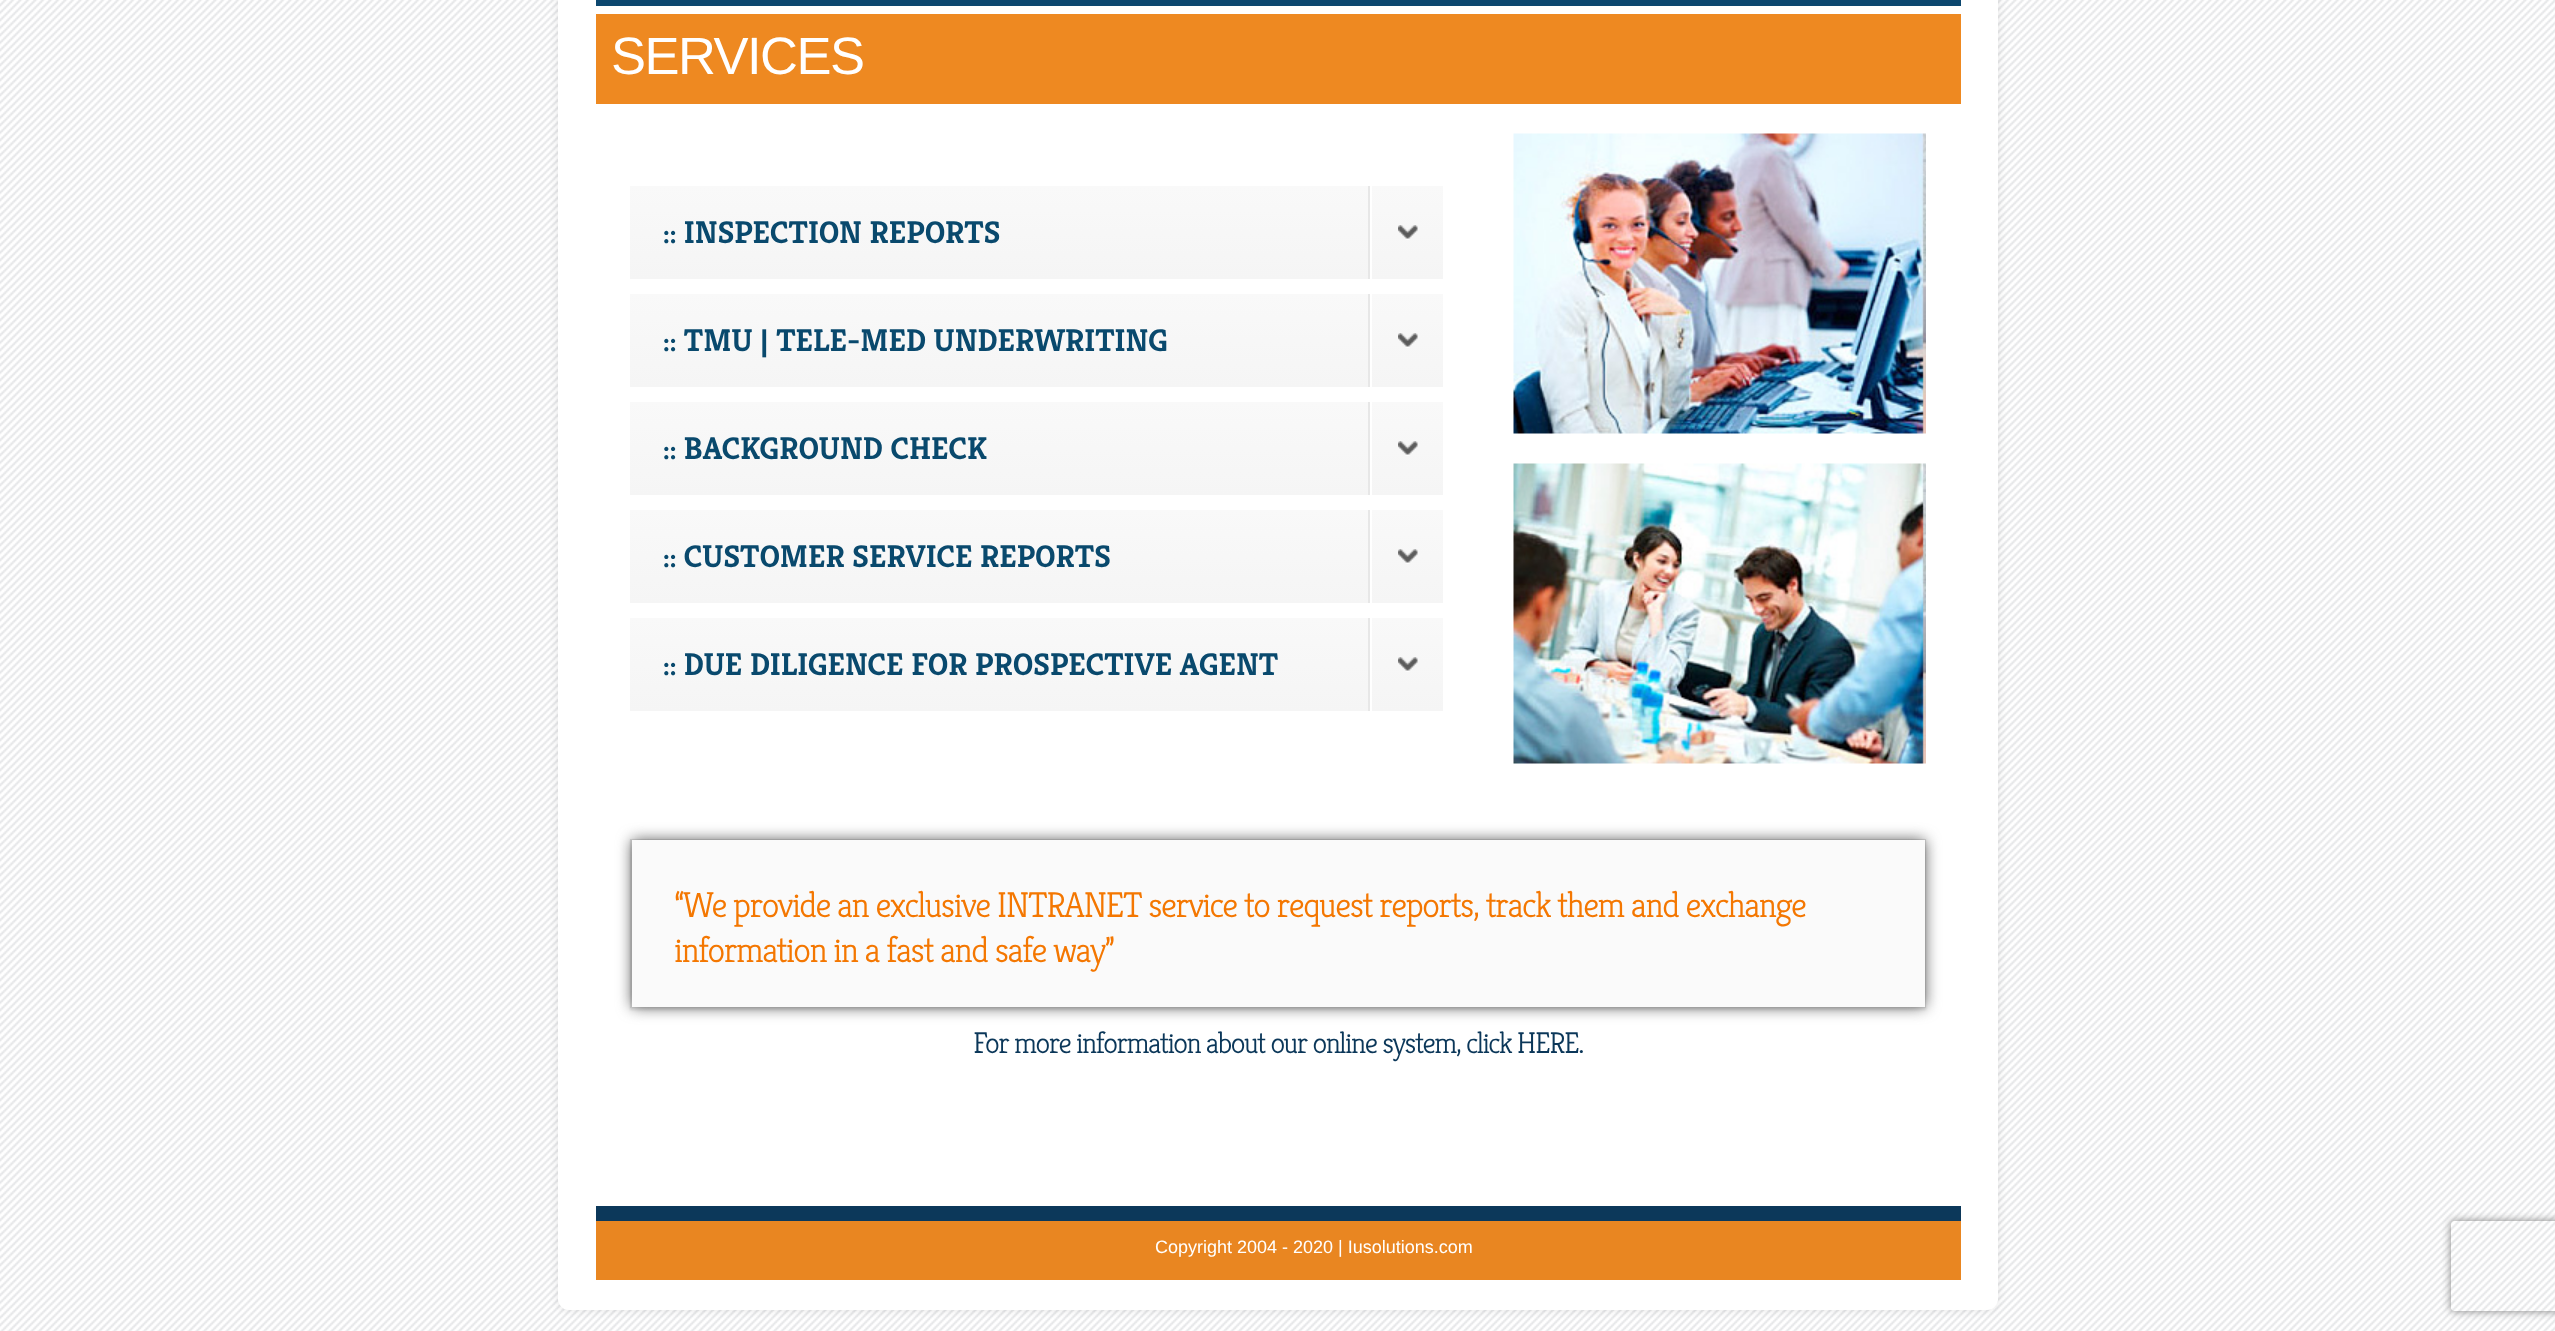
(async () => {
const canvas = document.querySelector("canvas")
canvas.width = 2555
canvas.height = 1331
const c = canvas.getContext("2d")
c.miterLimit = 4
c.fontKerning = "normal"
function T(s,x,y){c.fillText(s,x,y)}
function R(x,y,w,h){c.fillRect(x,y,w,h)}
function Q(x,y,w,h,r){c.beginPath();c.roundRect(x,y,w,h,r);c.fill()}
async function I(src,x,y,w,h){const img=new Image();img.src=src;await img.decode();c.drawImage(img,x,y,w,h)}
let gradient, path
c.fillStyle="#fff"
R(0,0,2555,1331)
await I("1.png",0,0,2555,1331)
c.fillStyle="#0000001a"
c.filter="blur(4.5px)"
c.beginPath()
c.roundRect(558,-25,1440,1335,11)
c.fill()
c.filter="none"
c.fillStyle="#fff"
Q(558,-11,1440,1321,11)
c.fillStyle="#0c476f"
R(596,0,1365,6)
c.fillStyle="#ee8921"
R(596,14,1365,90)
c.letterSpacing="-1.5px"
c.font="52.5px Liberation Sans"
c.fillStyle="#fff"
T("SERVICES",611,74)
gradient = c.createLinearGradient(1037,186,1037,279)
gradient.addColorStop(0,"#f9f9f9")
gradient.addColorStop(1,"#f5f5f5")
c.fillStyle = gradient
R(630,186,813,93)
c.letterSpacing="0px"
c.font="bold 31.5px Kreon"
c.fillStyle="#09496d"
T(":: INSPECTION REPORTS",663,243)
c.fillStyle="#e7e7e7"
R(1368,186,2,93)
c.fillStyle="#fff"
R(1370,186,2,93)
await I("2.png",1398,225,20,15)
gradient = c.createLinearGradient(1037,294,1037,387)
gradient.addColorStop(0,"#f9f9f9")
gradient.addColorStop(1,"#f5f5f5")
c.fillStyle = gradient
R(630,294,813,93)
c.fillStyle="#09496d"
T(":: TMU | TELE-MED UNDERWRITING",663,351)
c.fillStyle="#e7e7e7"
R(1368,294,2,93)
c.fillStyle="#fff"
R(1370,294,2,93)
await I("2.png",1398,333,20,15)
gradient = c.createLinearGradient(1037,402,1037,495)
gradient.addColorStop(0,"#f9f9f9")
gradient.addColorStop(1,"#f5f5f5")
c.fillStyle = gradient
R(630,402,813,93)
c.fillStyle="#09496d"
T(":: BACKGROUND CHECK",663,459)
c.fillStyle="#e7e7e7"
R(1368,402,2,93)
c.fillStyle="#fff"
R(1370,402,2,93)
await I("2.png",1398,441,20,15)
gradient = c.createLinearGradient(1037,510,1037,603)
gradient.addColorStop(0,"#f9f9f9")
gradient.addColorStop(1,"#f5f5f5")
c.fillStyle = gradient
R(630,510,813,93)
c.fillStyle="#09496d"
T(":: CUSTOMER SERVICE REPORTS",663,567)
c.fillStyle="#e7e7e7"
R(1368,510,2,93)
c.fillStyle="#fff"
R(1370,510,2,93)
await I("2.png",1398,549,20,15)
gradient = c.createLinearGradient(1037,618,1037,711)
gradient.addColorStop(0,"#f9f9f9")
gradient.addColorStop(1,"#f5f5f5")
c.fillStyle = gradient
R(630,618,813,93)
c.fillStyle="#09496d"
T(":: DUE DILIGENCE FOR PROSPECTIVE AGENT",663,675)
c.fillStyle="#e7e7e7"
R(1368,618,2,93)
c.fillStyle="#fff"
R(1370,618,2,93)
await I("2.png",1398,657,20,15)
await I("3.png",1513,133,413,301)
await I("4.png",1513,463,413,301)
c.fillStyle="#0000001a"
c.filter="blur(1px)"
c.beginPath()
c.rect(630,840,1296,170)
c.fill()
c.filter="none"
c.strokeStyle="#ddd"
c.lineWidth=2
c.strokeRect(631,840,1294,167)
c.fillStyle="#5c5c5c"
c.filter="blur(7.5px)"
c.beginPath()
c.rect(632,840,1293,167)
c.fill()
c.filter="none"
c.fillStyle="#fafafa"
R(632,840,1293,167)
c.letterSpacing="-1.5px"
c.font="300 36px Kreon"
c.fillStyle="#f47701"
T("“We provide an exclusive INTRANET service to request reports, track them and exchange",674,917)
T("information in a fast and safe way”",674,962)
c.font="300 30px Kreon"
c.fillStyle="#0b3759"
T("For more information about our online system, click HERE.",973,1053)
c.fillStyle="#e98621"
R(596,1221,1365,59)
c.fillStyle="#0c385a"
R(596,1206,1365,15)
c.letterSpacing="0px"
c.font="18px Liberation Sans"
c.fillStyle="#fff"
T("Copyright 2004 - 2020 | Iusolutions.com",1155,1253)
c.save()
path = new Path2D("M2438 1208h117v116h-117zm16 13h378c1.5 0 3 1.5 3 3v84c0 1.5-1.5 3-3 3h-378c-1.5 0-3-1.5-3-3v-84c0-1.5 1.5-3 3-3z")
c.clip(path,"evenodd")
c.fillStyle="#808080"
c.filter="blur(4px)"
c.beginPath()
c.roundRect(2451,1221,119,90,3)
c.fill()
c.filter="none"
c.restore()
})()
